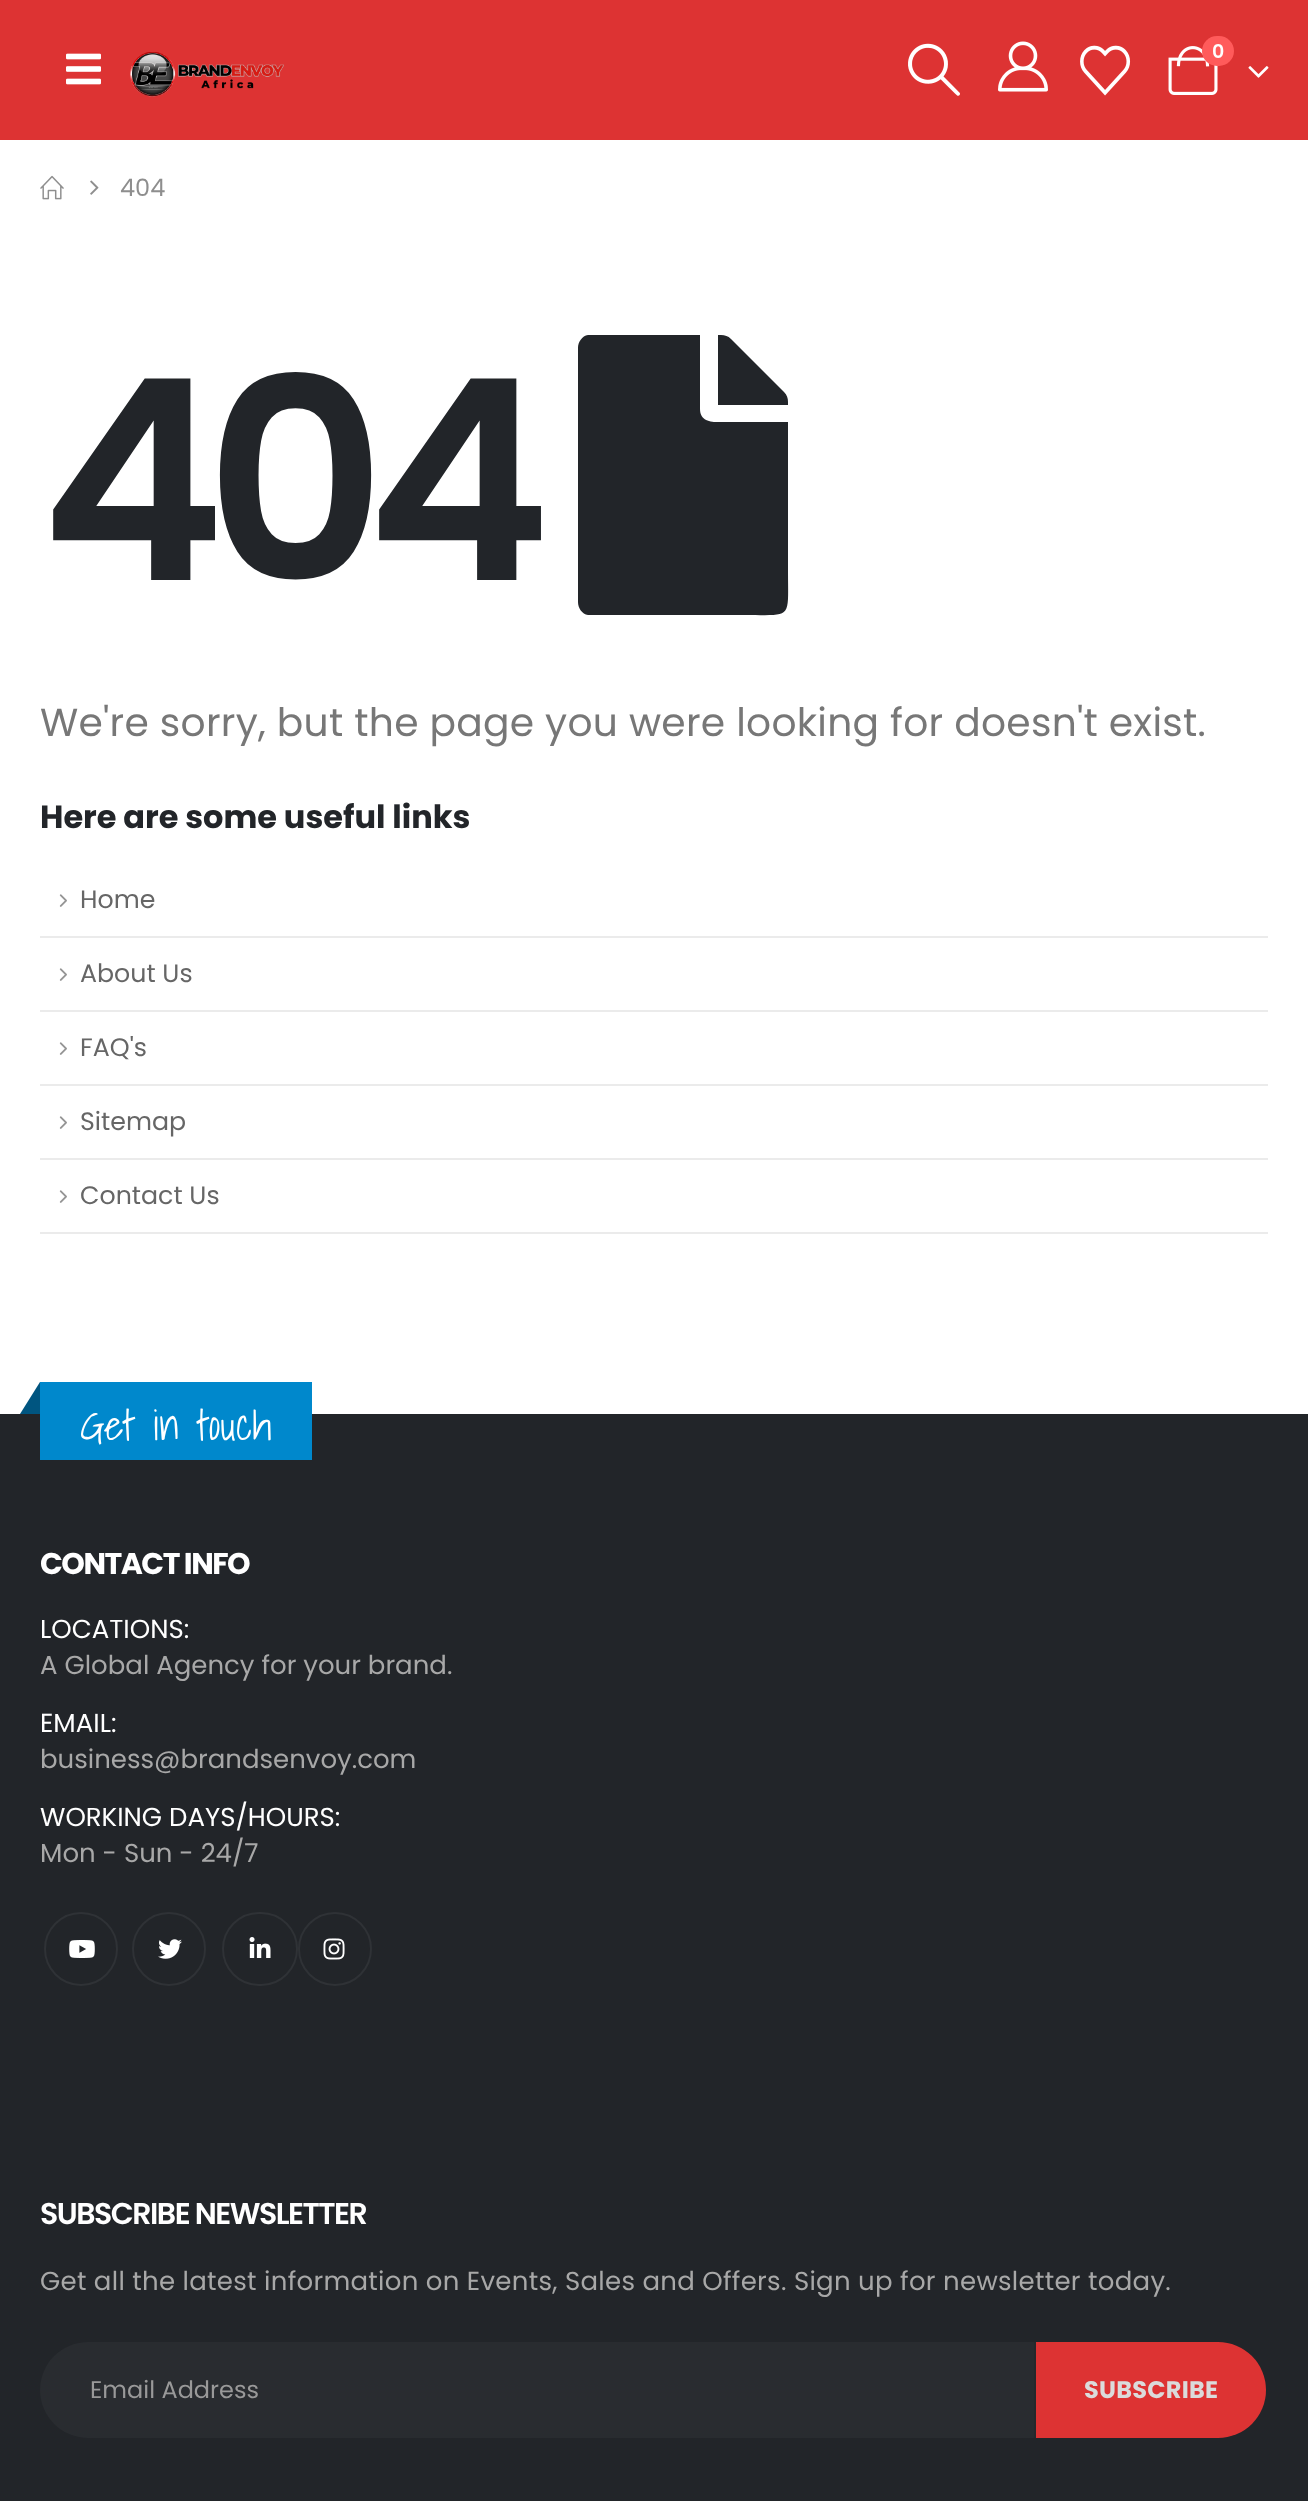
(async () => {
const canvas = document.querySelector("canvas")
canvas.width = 1308
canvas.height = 2501
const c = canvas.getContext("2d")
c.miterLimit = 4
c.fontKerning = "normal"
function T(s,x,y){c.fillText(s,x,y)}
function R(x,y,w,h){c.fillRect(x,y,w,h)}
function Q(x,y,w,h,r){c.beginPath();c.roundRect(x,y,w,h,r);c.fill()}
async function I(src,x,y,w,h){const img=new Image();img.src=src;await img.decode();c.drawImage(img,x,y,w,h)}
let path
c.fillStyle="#fff"
R(0,0,1308,2501)
c.fillStyle="#d33"
R(0,0,1308,140)
await I("1.png",908,43,52,53)
await I("2.png",998,41,50,51)
await I("3.png",1080,45,51,51)
await I("4.png",1168,46,50,49)
c.fillStyle="#ff5b5b"
Q(1202,36,32,30,15)
c.font="600 19px Poppins"
c.fillStyle="#fff"
T("0",1212,58)
await I("5.png",1248,66,21,12)
await I("6.png",66,53,35,32)
await I("7.png",130,52,154,45)
await I("8.png",40,175,24,25)
await I("9.png",90,180,9,15)
c.font="24px Poppins"
c.fillStyle="#8e8e8e"
T("404",120,196)
c.letterSpacing="-20px"
c.font="600 280px Poppins"
c.fillStyle="#222529"
T("404",40,580)
path = new Path2D("M700 409c0 15 16 13 26 13h62v150c0 48 5 43-44 43h-156c-6-1-10-7-10-13v-254c0-6 4-12 10-13h112zm88-7v3h-70v-70h3c4 0 7 1 10 4l53 53c3 3 4 6 4 10z")
c.fill(path)
c.letterSpacing="0.28px"
c.font="39.2px Poppins"
c.fillStyle="#777"
T("We're sorry, but the page you were looking for doesn't exist.",40,736)
c.letterSpacing="0px"
c.font="bold 32px Poppins"
c.fillStyle="#222529"
T("Here are some useful links",40,828)
c.fillStyle="#ebebeb"
R(40,936,1228,2)
await I("10.png",59,894,8,13)
c.font="25.25px Poppins"
c.fillStyle="#666"
T("Home",80,908)
c.fillStyle="#ebebeb"
R(40,1010,1228,2)
await I("10.png",59,968,8,13)
c.fillStyle="#666"
T("About Us",80,982)
c.fillStyle="#ebebeb"
R(40,1084,1228,2)
await I("10.png",59,1042,8,13)
c.fillStyle="#666"
T("FAQ's",80,1056)
c.fillStyle="#ebebeb"
R(40,1158,1228,2)
await I("10.png",59,1116,8,13)
c.fillStyle="#666"
T("Sitemap",80,1130)
c.fillStyle="#ebebeb"
R(40,1232,1228,2)
await I("10.png",59,1190,8,13)
c.fillStyle="#666"
T("Contact Us",80,1204)
c.fillStyle="#222529"
R(0,1414,1308,1087)
c.fillStyle="#08c"
R(40,1382,272,78)
c.fillStyle="#005580"
path = new Path2D("M40 1382v32h-20z")
c.fill(path)
c.font="300 41.5px Shadows Into Light"
c.fillStyle="#fff"
T("Get in touch",80,1440)
c.letterSpacing="-1.5px"
c.font="bold 30px Poppins"
T("CONTACT INFO",40,1574)
c.letterSpacing="0px"
c.font="26px Poppins"
T("LOCATIONS:",40,1638)
c.fillStyle="#a8a8a8"
T("A Global Agency for your brand.",40,1674)
c.fillStyle="#fff"
T("EMAIL:",40,1732)
c.fillStyle="#a8a8a8"
T("business@brandsenvoy.com",40,1768)
c.fillStyle="#fff"
T("WORKING DAYS/HOURS:",40,1826)
c.fillStyle="#a8a8a8"
T("Mon - Sun - 24/7",40,1862)
c.beginPath()
c.arc(81,1949,36,0,7)
c.strokeStyle="#2f3236"
c.lineWidth=2
c.stroke()
await I("11.png",69,1940,26,18)
c.beginPath()
c.arc(169,1949,36,0,7)
c.stroke()
await I("12.png",158,1939,24,20)
c.beginPath()
c.roundRect(223,1913,74,72,36)
c.stroke()
await I("13.png",249,1937,22,21)
c.beginPath()
c.arc(335,1949,36,0,7)
c.stroke()
await I("14.png",323,1938,22,22)
c.letterSpacing="-1.5px"
c.font="600 30px Poppins"
c.fillStyle="#fff"
T("SUBSCRIBE NEWSLETTER",40,2224)
c.letterSpacing="0.28px"
c.font="26px Poppins"
c.fillStyle="#a8a8a8"
T("Get all the latest information on Events, Sales and Offers. Sign up for newsletter today.",40,2290)
c.fillStyle="#d33"
c.beginPath()
c.roundRect(1034,2342,232,96,[0,48,48,0])
c.fill()
c.fillStyle="#292c30"
c.beginPath()
c.roundRect(40,2342,996,96,[48,0,0,48])
c.fill()
c.fillStyle="#26282c"
R(1034,2342,2,96)
c.letterSpacing="0px"
c.font="24px Poppins"
c.fillStyle="#999"
T("Email Address",90,2398)
c.letterSpacing="0.25px"
c.font="bold 24px Poppins"
c.fillStyle="#dbdbdb"
T("SUBSCRIBE",1084,2398)
})()
